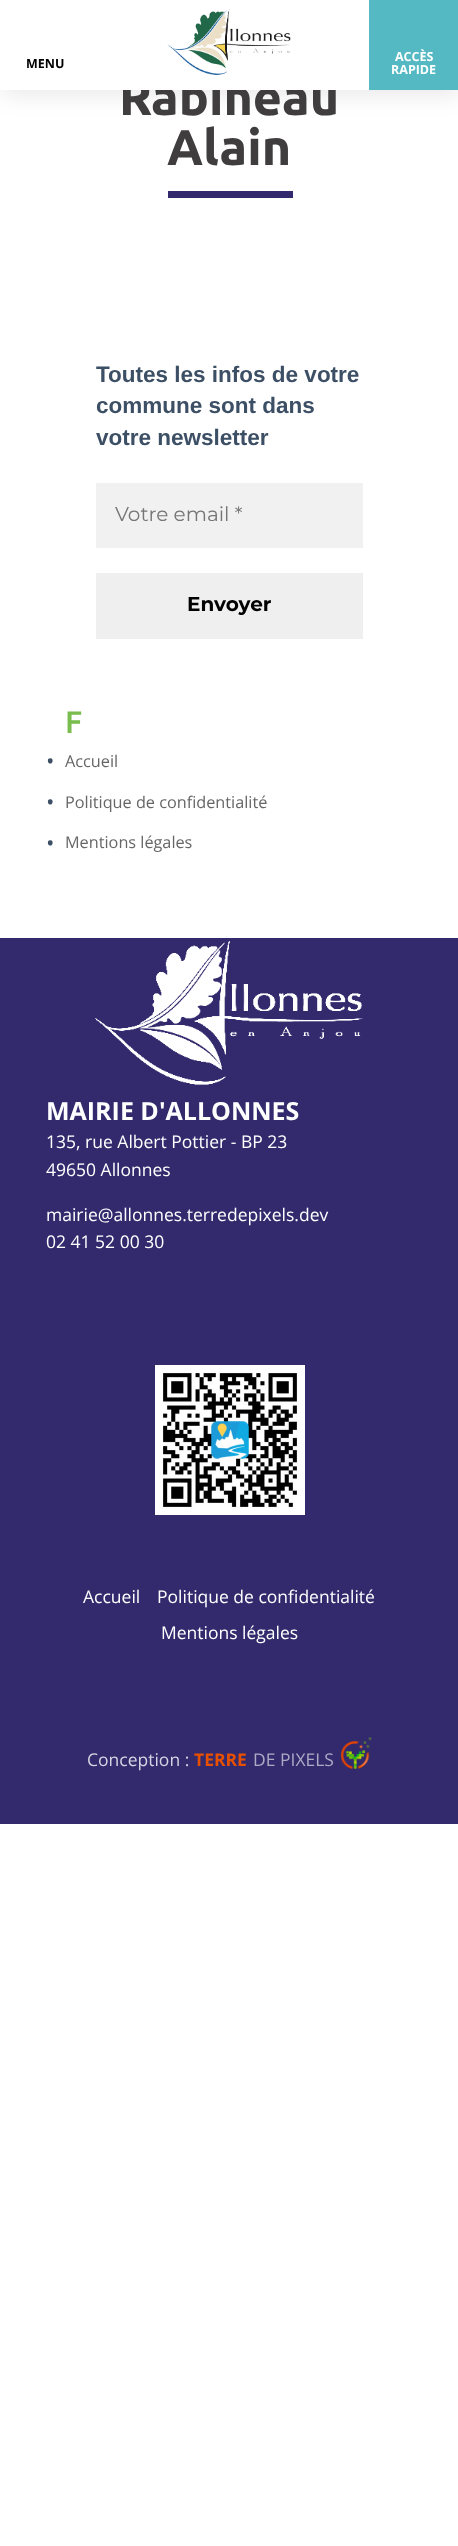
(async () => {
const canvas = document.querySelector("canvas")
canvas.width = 458
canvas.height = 2546
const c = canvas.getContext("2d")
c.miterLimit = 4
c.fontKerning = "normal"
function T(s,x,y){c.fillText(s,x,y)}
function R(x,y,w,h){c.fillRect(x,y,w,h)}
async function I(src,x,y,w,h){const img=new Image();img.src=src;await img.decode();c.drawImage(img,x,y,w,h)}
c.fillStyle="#fff"
R(0,0,458,2546)
c.fillStyle="#0000001a"
c.filter="blur(12.5px)"
c.beginPath()
c.rect(3,3,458,90)
c.fill()
c.filter="none"
c.font="bold 50px Ubuntu"
c.fillStyle="#3f3d3e"
T("Rabineau",119,115)
c.fillStyle="#fff"
R(0,0,369,90)
c.font="bold 12.5px Open Sans"
c.fillStyle="#000"
T("MENU",26,68)
await I("1.png",167,9,124,66)
c.fillStyle="#54b9c3"
R(369,0,89,90)
c.fillStyle="#fff"
T("ACCÈS",395,61)
T("RAPIDE",391,74)
c.font="bold 50px Ubuntu"
c.fillStyle="#3f3d3e"
T("Alain",167,165)
c.fillStyle="#332a6e"
R(168,191,125,7)
c.font="bold 22.5px Liberation Sans"
c.fillStyle="#3c4f65"
T("Toutes les infos de votre",96,382)
T("commune sont dans",96,413)
T("votre newsletter",96,445)
c.fillStyle="#f1f1f1"
R(96,483,267,65)
c.font="20px Montserrat"
c.fillStyle="#757575"
T("Votre email *",115,521)
c.fillStyle="#efefef"
R(96,573,267,66)
c.font="bold 20px Montserrat"
c.fillStyle="#000"
T("Envoyer",187,611)
c.font="500 31px Ubuntu"
c.fillStyle="#79bd4e"
T("F",65,733)
c.font="22.5px Open Sans"
c.fillStyle="#3c4f65"
T("•",46,769)
c.font="16.25px Open Sans"
c.fillStyle="#666"
T("Accueil",65,767)
c.font="22.5px Open Sans"
c.fillStyle="#3c4f65"
T("•",46,810)
c.font="16.25px Open Sans"
c.fillStyle="#666"
T("Politique de confidentialité",65,808)
c.font="22.5px Open Sans"
c.fillStyle="#3c4f65"
T("•",46,851)
c.font="16.25px Open Sans"
c.fillStyle="#666"
T("Mentions légales",65,848)
c.fillStyle="#332a6e"
R(0,938,458,886)
await I("2.png",95,941,268,144)
c.font="bold 25px Open Sans"
c.fillStyle="#fff"
T("MAIRIE D'ALLONNES",46,1120)
c.font="17.5px Open Sans"
T("135, rue Albert Pottier - BP 23",46,1148)
T("49650 Allonnes",46,1176)
T("mairie@allonnes.terredepixels.dev",46,1221)
T("02 41 52 00 30",46,1248)
await I("3.png",155,1365,150,150)
T("Accueil",83,1603)
T("Politique de confidentialité",157,1603)
T("Mentions légales",161,1639)
c.fillStyle="#d6d4e2"
T("Conception :",87,1766)
c.font="bold 17.5px Open Sans"
c.fillStyle="#e75000"
T("TERRE",194,1766)
c.font="17.5px Open Sans"
c.fillStyle="#adaac5"
T("DE PIXELS",253,1766)
await I("4.png",341,1737,31,32)
})()
